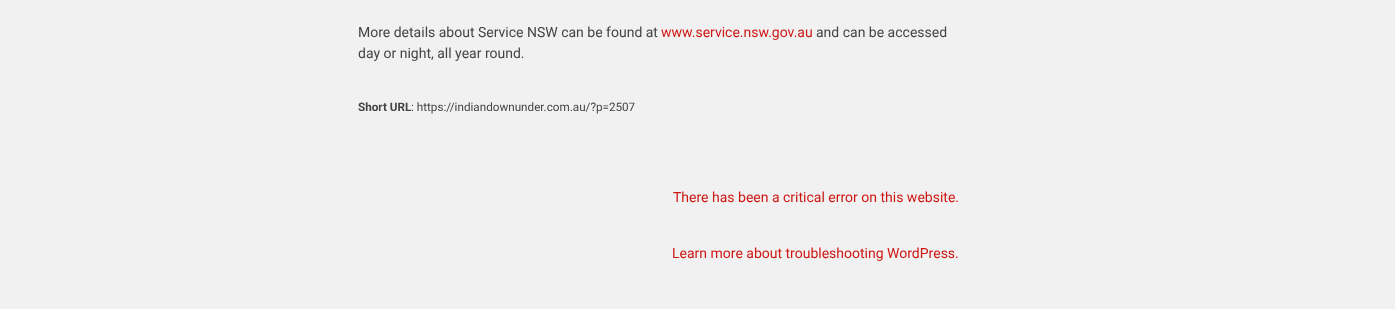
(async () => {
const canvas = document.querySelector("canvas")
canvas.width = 1395
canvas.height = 309
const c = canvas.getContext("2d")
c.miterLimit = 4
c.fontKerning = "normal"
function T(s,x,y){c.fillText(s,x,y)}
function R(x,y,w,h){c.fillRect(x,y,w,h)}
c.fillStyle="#f1f1f1"
R(0,0,1395,309)
c.font="14px Roboto"
c.fillStyle="#444"
T("More details about Service NSW can be found at",358,37)
c.fillStyle="#cd1713"
T("www.service.nsw.gov.au",661,37)
c.fillStyle="#444"
T("and can be accessed",816,37)
T("day or night, all year round.",358,58)
c.font="bold 11.7px Roboto"
T("Short URL",358,111)
c.font="11.7px Roboto"
T(": https://indiandownunder.com.au/?p=2507",411,111)
c.font="14px Roboto"
c.fillStyle="#cd1713"
T("There has been a critical error on this website.",673,202)
T("Learn more about troubleshooting WordPress.",672,258)
})()
